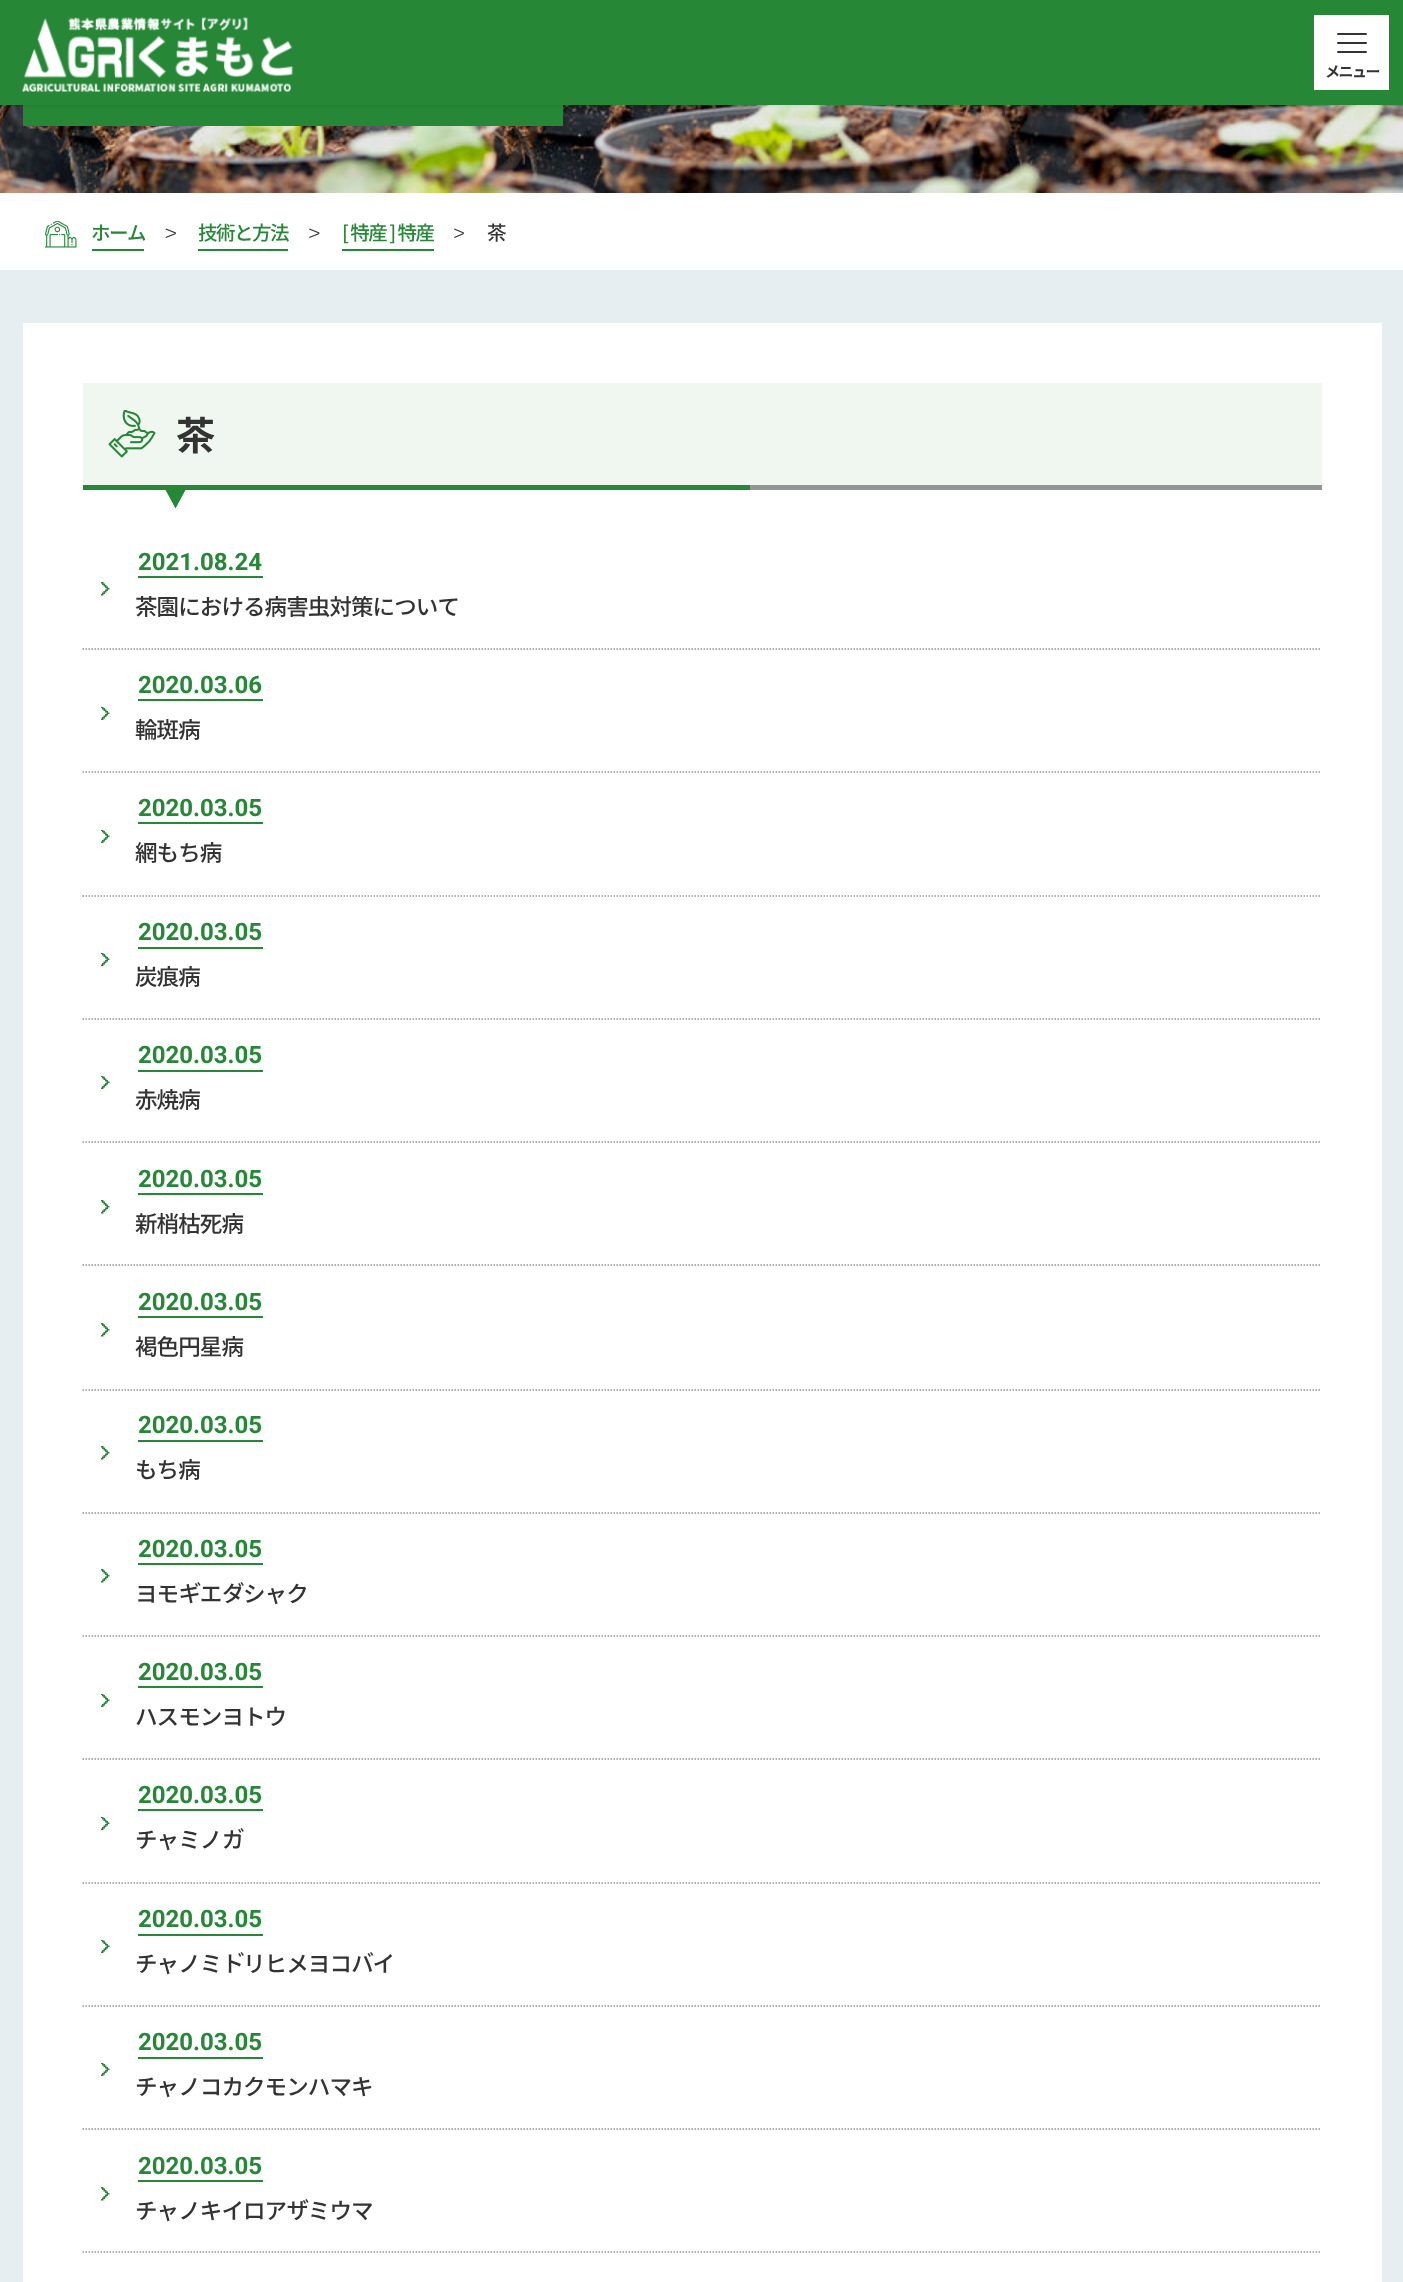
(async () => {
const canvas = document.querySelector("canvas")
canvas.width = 1403
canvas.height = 2282
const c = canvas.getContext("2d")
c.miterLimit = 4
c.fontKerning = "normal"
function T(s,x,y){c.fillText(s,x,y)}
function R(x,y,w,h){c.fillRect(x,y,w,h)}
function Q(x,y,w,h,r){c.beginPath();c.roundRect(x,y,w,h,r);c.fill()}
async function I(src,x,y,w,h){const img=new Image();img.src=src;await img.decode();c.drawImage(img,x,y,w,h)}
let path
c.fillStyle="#fff"
R(0,0,1403,2282)
await I("2.png",0,105,1403,88)
c.fillStyle="#268737"
R(23,105,540,21)
c.fillStyle="#0000001a"
c.filter="blur(2px)"
c.beginPath()
c.rect(0,0,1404,105)
c.fill()
c.filter="none"
c.fillStyle="#268737"
R(0,0,1403,105)
await I("1.png",22,17,271,75)
c.fillStyle="#fff"
R(1314,15,75,75)
c.fillStyle="#333"
Q(1337,42,30,2,1)
Q(1337,33,30,2,1)
Q(1337,51,30,2,1)
c.letterSpacing="-1.5px"
c.font="bold 15px Noto Sans JP"
T("メニュー",1325,77)
await I("3.png",45,221,32,27)
c.font="500 19.5px Noto Sans JP"
c.fillStyle="#268737"
T("ホーム",91,240)
R(92,249,52,2)
c.fillStyle="#333"
path = new Path2D("M165.5 229.5l.5-1l10 4l-.5 1z")
c.fill(path)
path = new Path2D("M175.5 233l.5 1l-10 4l-.5-1z")
c.fill(path)
c.fillStyle="#268737"
T("技術と方法",198,240)
R(198,249,90,2)
c.fillStyle="#333"
path = new Path2D("M309 229.5l.5-1l10 4l-.5 1z")
c.fill(path)
path = new Path2D("M319 233l.5 1l-10 4l-.5-1z")
c.fill(path)
c.fillStyle="#268737"
T("[ 特産 ] 特産",342,240)
R(342,249,92,2)
c.fillStyle="#333"
path = new Path2D("M454 229.5l.5-1l9.5 4l-.5 1z")
c.fill(path)
path = new Path2D("M463.5 233l.5 1l-9.5 4l-.5-1z")
c.fill(path)
T("茶",487,240)
c.fillStyle="#e7eef1"
R(0,270,1403,2012)
c.fillStyle="#fff"
R(23,323,1359,1959)
c.fillStyle="#f0f7f1"
R(83,383,1239,102)
c.fillStyle="#959595"
R(750,485,572,5)
await I("4.png",108,410,48,48)
c.font="bold 39px Noto Sans JP"
c.fillStyle="#333"
T("茶",176,450)
c.fillStyle="#268737"
R(83,485,667,5)
path = new Path2D("M165 489h21l-10.5 19.5z")
c.fill(path)
await I("5.png",101,582,9,14)
c.letterSpacing="0px"
c.font="bold 24px Roboto"
T("2021.08.24",138,570)
R(138,576,125,2)
c.letterSpacing="-0.9px"
c.font="500 22.5px Noto Sans JP"
c.fillStyle="#333"
T("茶園における病害虫対策について",135,615)
path = new Path2D("M82.5 649h1239")
c.strokeStyle="#959595"
c.lineWidth=1.5
c.setLineDash([1.5,1.5])
c.stroke(path)
await I("6.png",101,707,9,13)
c.letterSpacing="0px"
c.font="bold 24px Roboto"
c.fillStyle="#268737"
T("2020.03.06",138,693)
R(138,699,125,2)
c.letterSpacing="-0.9px"
c.font="500 22.5px Noto Sans JP"
c.fillStyle="#333"
T("輪斑病",135,738)
path = new Path2D("M82.5 772h1239")
c.stroke(path)
await I("6.png",101,830,9,13)
c.letterSpacing="0px"
c.font="bold 24px Roboto"
c.fillStyle="#268737"
T("2020.03.05",138,816)
R(138,822,125,2)
c.letterSpacing="-0.9px"
c.font="500 22.5px Noto Sans JP"
c.fillStyle="#333"
T("網もち病",135,861)
path = new Path2D("M82.5 896h1239")
c.stroke(path)
await I("6.png",101,953,9,13)
c.letterSpacing="0px"
c.font="bold 24px Roboto"
c.fillStyle="#268737"
T("2020.03.05",138,940)
R(138,947,125,2)
c.letterSpacing="-0.9px"
c.font="500 22.5px Noto Sans JP"
c.fillStyle="#333"
T("炭痕病",135,985)
path = new Path2D("M82.5 1019h1239")
c.stroke(path)
await I("6.png",101,1076,9,13)
c.letterSpacing="0px"
c.font="bold 24px Roboto"
c.fillStyle="#268737"
T("2020.03.05",138,1063)
R(138,1070,125,2)
c.letterSpacing="-0.9px"
c.font="500 22.5px Noto Sans JP"
c.fillStyle="#333"
T("赤焼病",135,1108)
path = new Path2D("M82.5 1142h1239")
c.stroke(path)
await I("5.png",101,1200,9,14)
c.letterSpacing="0px"
c.font="bold 24px Roboto"
c.fillStyle="#268737"
T("2020.03.05",138,1187)
R(138,1193,125,2)
c.letterSpacing="-0.9px"
c.font="500 22.5px Noto Sans JP"
c.fillStyle="#333"
T("新梢枯死病",135,1232)
path = new Path2D("M82.5 1265h1239")
c.stroke(path)
await I("5.png",101,1323,9,14)
c.letterSpacing="0px"
c.font="bold 24px Roboto"
c.fillStyle="#268737"
T("2020.03.05",138,1310)
R(138,1316,125,2)
c.letterSpacing="-0.9px"
c.font="500 22.5px Noto Sans JP"
c.fillStyle="#333"
T("褐色円星病",135,1355)
path = new Path2D("M82.5 1390h1239")
c.stroke(path)
await I("5.png",101,1446,9,14)
c.letterSpacing="0px"
c.font="bold 24px Roboto"
c.fillStyle="#268737"
T("2020.03.05",138,1433)
R(138,1440,125,2)
c.letterSpacing="-0.9px"
c.font="500 22.5px Noto Sans JP"
c.fillStyle="#333"
T("もち病",135,1478)
path = new Path2D("M82.5 1513h1239")
c.stroke(path)
await I("5.png",101,1569,9,14)
c.letterSpacing="0px"
c.font="bold 24px Roboto"
c.fillStyle="#268737"
T("2020.03.05",138,1557)
R(138,1563,125,2)
c.letterSpacing="-0.9px"
c.font="500 22.5px Noto Sans JP"
c.fillStyle="#333"
T("ヨモギエダシャク",135,1602)
path = new Path2D("M82.5 1636h1239")
c.stroke(path)
await I("6.png",101,1694,9,13)
c.letterSpacing="0px"
c.font="bold 24px Roboto"
c.fillStyle="#268737"
T("2020.03.05",138,1680)
R(138,1686,125,2)
c.letterSpacing="-0.9px"
c.font="500 22.5px Noto Sans JP"
c.fillStyle="#333"
T("ハスモンヨトウ",135,1725)
path = new Path2D("M82.5 1759h1239")
c.stroke(path)
await I("6.png",101,1817,9,13)
c.letterSpacing="0px"
c.font="bold 24px Roboto"
c.fillStyle="#268737"
T("2020.03.05",138,1803)
R(138,1809,125,2)
c.letterSpacing="-0.9px"
c.font="500 22.5px Noto Sans JP"
c.fillStyle="#333"
T("チャミノガ",135,1848)
path = new Path2D("M82.5 1883h1239")
c.stroke(path)
await I("6.png",101,1940,9,13)
c.letterSpacing="0px"
c.font="bold 24px Roboto"
c.fillStyle="#268737"
T("2020.03.05",138,1927)
R(138,1934,125,2)
c.letterSpacing="-0.9px"
c.font="500 22.5px Noto Sans JP"
c.fillStyle="#333"
T("チャノミドリヒメヨコバイ",135,1972)
path = new Path2D("M82.5 2006h1239")
c.stroke(path)
await I("6.png",101,2063,9,13)
c.letterSpacing="0px"
c.font="bold 24px Roboto"
c.fillStyle="#268737"
T("2020.03.05",138,2050)
R(138,2057,125,2)
c.letterSpacing="-0.9px"
c.font="500 22.5px Noto Sans JP"
c.fillStyle="#333"
T("チャノコカクモンハマキ",135,2095)
path = new Path2D("M82.5 2129h1239")
c.stroke(path)
await I("5.png",101,2187,9,14)
c.letterSpacing="0px"
c.font="bold 24px Roboto"
c.fillStyle="#268737"
T("2020.03.05",138,2174)
R(138,2180,125,2)
c.letterSpacing="-0.9px"
c.font="500 22.5px Noto Sans JP"
c.fillStyle="#333"
T("チャノキイロアザミウマ",135,2219)
path = new Path2D("M82.5 2252h1239")
c.stroke(path)
})()
